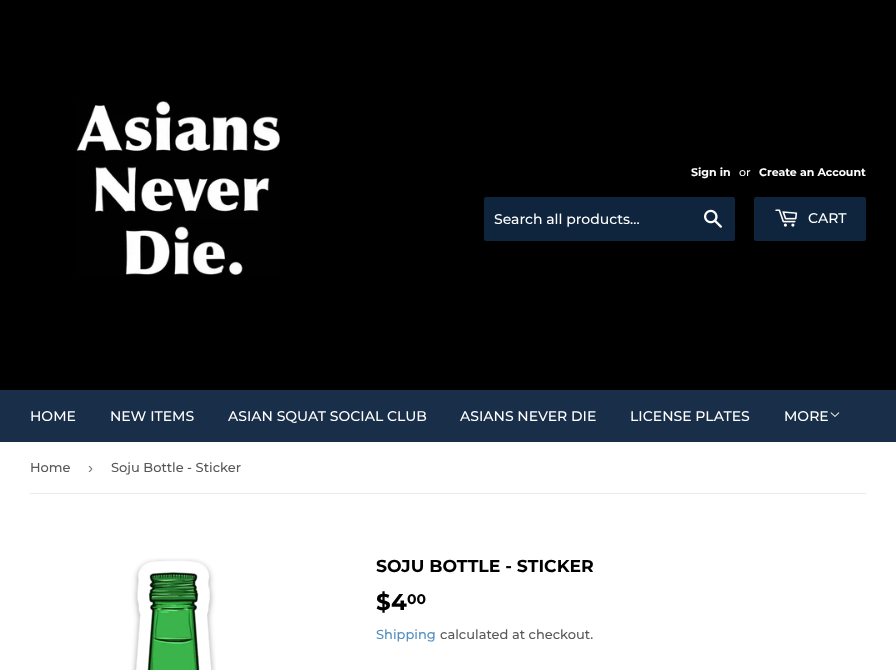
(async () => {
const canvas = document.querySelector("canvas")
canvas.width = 896
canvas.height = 670
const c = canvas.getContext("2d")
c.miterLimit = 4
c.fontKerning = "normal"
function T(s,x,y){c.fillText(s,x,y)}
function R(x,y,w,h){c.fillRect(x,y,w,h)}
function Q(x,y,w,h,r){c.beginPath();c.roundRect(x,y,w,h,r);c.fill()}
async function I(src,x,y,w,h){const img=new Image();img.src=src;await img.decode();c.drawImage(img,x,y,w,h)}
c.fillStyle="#fff"
R(0,0,896,670)
c.fillStyle="#000"
R(0,0,896,390)
await I("1.png",76,101,204,174)
c.font="bold 11px Montserrat"
c.fillStyle="#fff"
T("Sign in",691,176)
c.font="500 11px Montserrat"
T("or",739,176)
c.font="bold 11px Montserrat"
T("Create an Account",759,176)
c.fillStyle="#0f243d"
Q(484,197,251,44,2)
c.font="500 14px Montserrat"
c.fillStyle="#fff"
T("Search all products...",494,224)
await I("2.png",704,209,18,19)
c.fillStyle="#0f243d"
Q(754,197,112,44,2)
await I("3.png",775,209,23,18)
c.fillStyle="#fff"
T("CART",808,223)
c.fillStyle="#182e49"
R(0,390,896,52)
c.fillStyle="#fff"
T("HOME",30,421)
T("NEW ITEMS",110,421)
T("ASIAN SQUAT SOCIAL CLUB",228,421)
T("ASIANS NEVER DIE",460,421)
T("LICENSE PLATES",630,421)
T("MORE",784,421)
await I("4.png",830,412,10,5)
c.fillStyle="#ececec"
R(30,493,836,1)
c.font="500 13px Montserrat"
c.fillStyle="#585858"
T("Home",30,472)
c.font="15px Liberation Sans"
c.fillStyle="#767676"
T("›",88,473)
c.font="500 13px Montserrat"
c.fillStyle="#585858"
T("Soju Bottle - Sticker",111,472)
await I("5.png",131,558,85,112)
c.font="bold 17.3px Montserrat"
c.fillStyle="#000"
T("SOJU BOTTLE - STICKER",376,572)
c.font="bold 23px Montserrat"
T("$4",376,610)
c.font="bold 14px Montserrat"
T("00",407,604)
c.font="500 13px Montserrat"
c.fillStyle="#528ec1"
T("Shipping",376,639)
c.fillStyle="#585858"
T("calculated at checkout.",440,639)
})()
